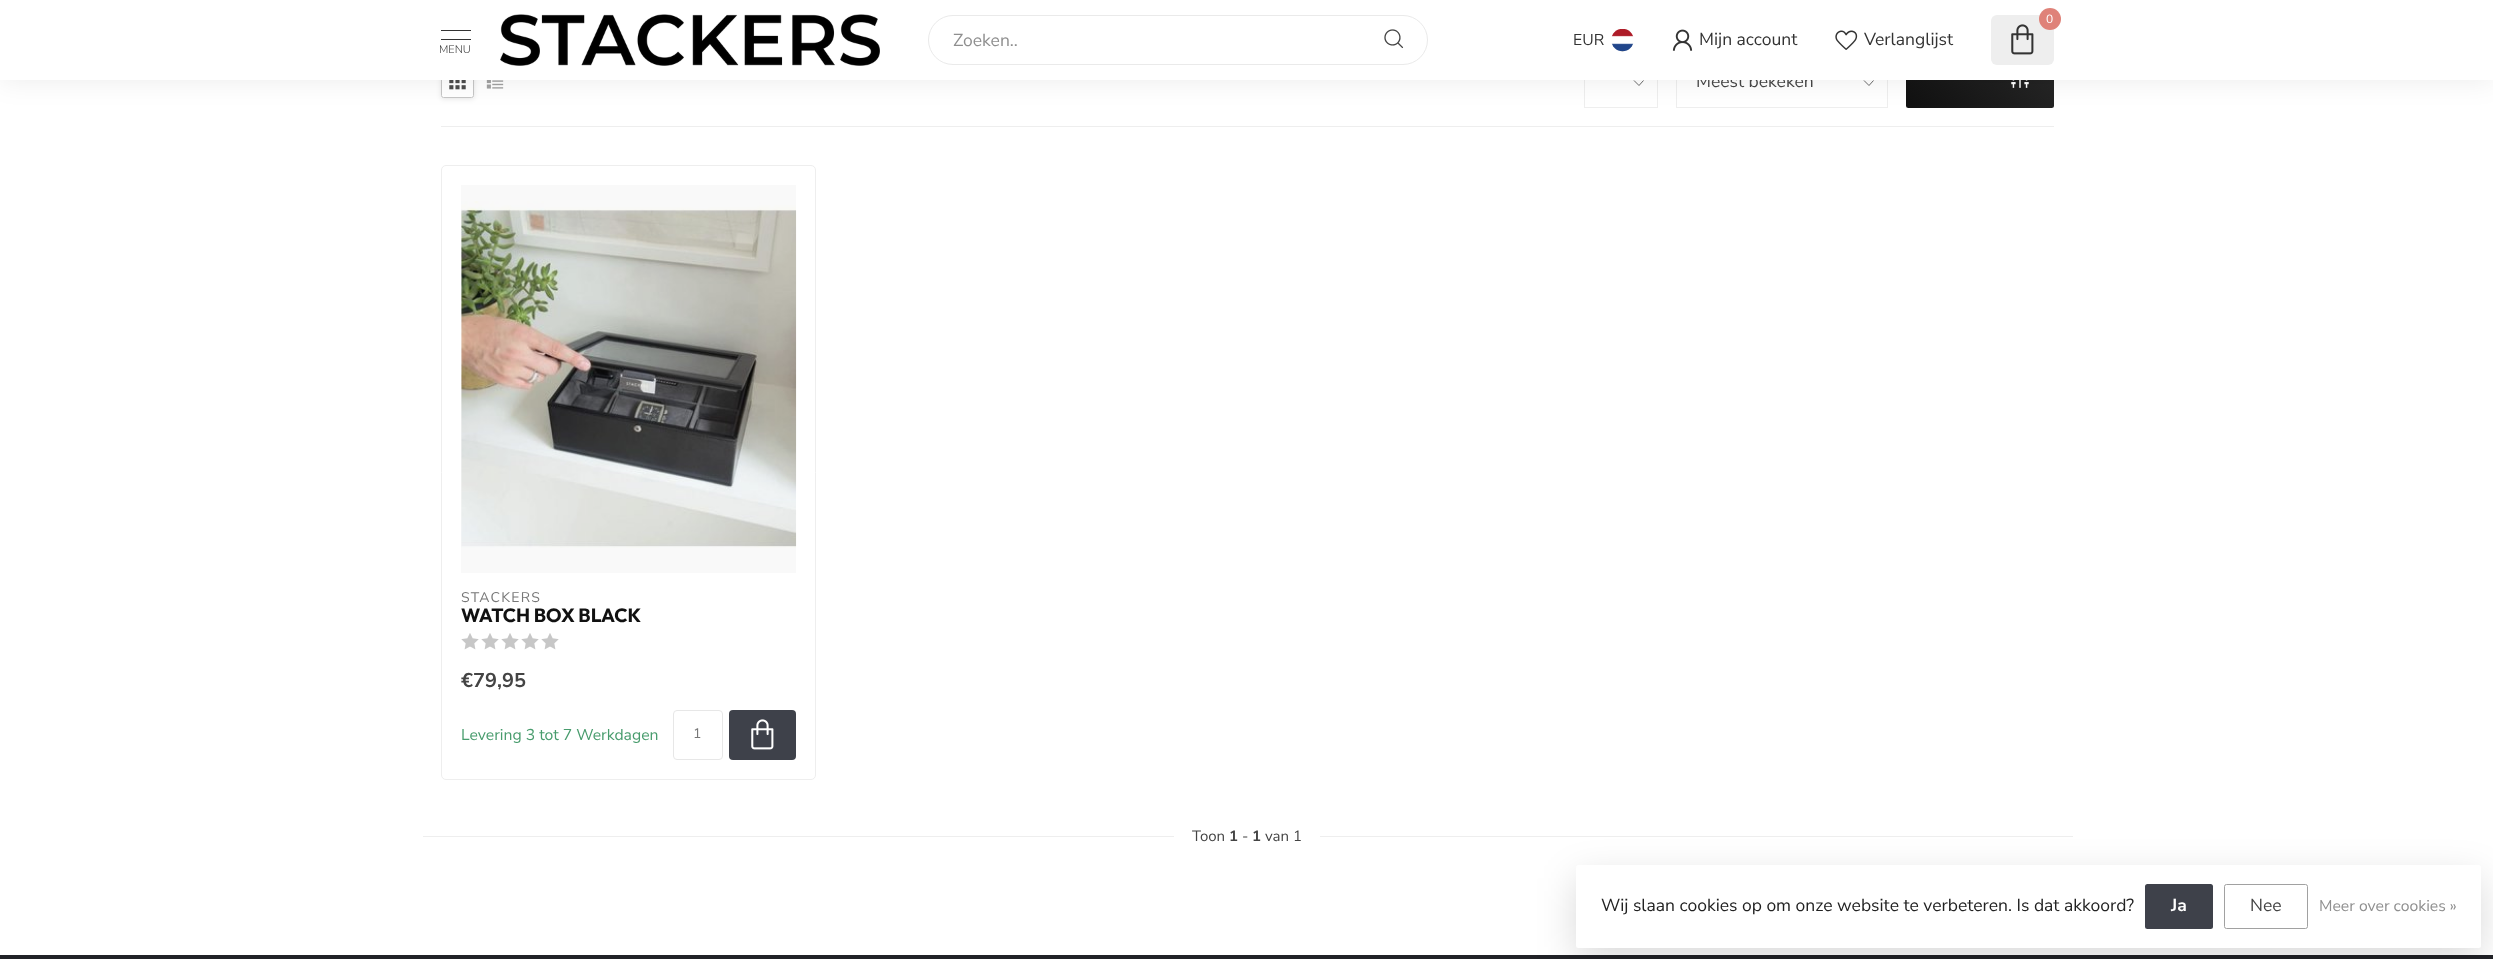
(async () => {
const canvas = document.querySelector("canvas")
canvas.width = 2493
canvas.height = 959
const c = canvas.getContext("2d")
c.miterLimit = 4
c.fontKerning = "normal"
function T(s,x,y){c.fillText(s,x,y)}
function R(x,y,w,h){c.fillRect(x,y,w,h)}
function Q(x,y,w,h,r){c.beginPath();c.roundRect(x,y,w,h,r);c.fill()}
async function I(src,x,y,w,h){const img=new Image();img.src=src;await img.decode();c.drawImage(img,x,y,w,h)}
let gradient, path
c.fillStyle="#fff"
R(0,0,2493,959)
c.save()
path = new Path2D("M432 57h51v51h-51zm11.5 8h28c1.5 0 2.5 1 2.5 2.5v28c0 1.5-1 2.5-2.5 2.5h-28c-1.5 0-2.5-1-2.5-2.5v-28c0-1.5 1-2.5 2.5-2.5z")
c.clip(path,"evenodd")
c.fillStyle="#0000001a"
c.filter="blur(2.5px)"
c.beginPath()
c.roundRect(441,66,33,33,2.5)
c.fill()
c.filter="none"
c.restore()
c.beginPath()
c.roundRect(441.5,65.5,32,32,2)
c.strokeStyle="#c6c6c6"
c.stroke()
await I("7.png",449,80,17,10)
await I("8.png",486,80,18,9)
path = new Path2D("M1643.5 80.5l-4.5 5l-5-5")
c.strokeStyle="#595959"
c.lineWidth=0.9
c.stroke(path)
c.strokeStyle="#eee"
c.lineWidth=1
c.strokeRect(1584.5,55.5,73,52)
path = new Path2D("M1873.5 80.5l-4.5 5l-5-5")
c.strokeStyle="#595959"
c.lineWidth=0.9
c.stroke(path)
c.strokeStyle="#eee"
c.lineWidth=1
c.strokeRect(1676.5,55.5,211,52)
gradient = c.createLinearGradient(1930,131,2030,31)
gradient.addColorStop(0,"#111")
gradient.addColorStop(1,"#282828")
c.fillStyle = gradient
Q(1906,55,148,53,2.5)
await I("9.png",2011,80,18,8)
c.fillStyle="#00000014"
c.filter="blur(14px)"
c.beginPath()
c.rect(0,-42,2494,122)
c.fill()
c.filter="none"
c.font="17.5px Nunito Sans"
c.fillStyle="#444"
T("Meest bekeken",1696,87)
c.fillStyle="#fff"
R(0,0,2493,80)
await I("1.png",500,14,380,52)
c.beginPath()
c.roundRect(928.5,15.5,499,49,24.5)
c.strokeStyle="#eaeaea"
c.stroke()
c.fillStyle="#8f8f8f"
T("Zoeken..",953,46)
await I("2.png",1384,29,20,20)
c.fillStyle="#333"
R(441,30,30,1)
R(441,39,30,1)
c.font="300 11px Nunito Sans"
T("MENU",439,53)
c.fillStyle="#eee"
Q(1991,15,63,50,6)
c.fillStyle="#df8279"
c.beginPath()
c.arc(2050,19,11,0,7)
c.fill()
c.font="12px Nunito Sans"
c.fillStyle="#fff"
T("0",2046,23)
await I("3.png",2011,24,23,31)
c.font="15.75px Nunito Sans"
c.fillStyle="#333"
T("EUR",1573,45)
await I("4.png",1611,29,23,23)
await I("5.png",1672,29,21,22)
c.font="17.5px Nunito Sans"
T("Mijn account",1699,45)
await I("6.png",1835,30,23,20)
T("Verlanglijst",1864,45)
c.fillStyle="#eee"
R(441,126,1613,1)
c.beginPath()
c.roundRect(441.5,165.5,374,614,4.5)
c.strokeStyle="#eee"
c.stroke()
c.fillStyle="#f9f9f9"
R(461,185,335,388)
await I("10.png",461,201,336,347)
c.letterSpacing="1.25px"
c.font="14px Nunito Sans"
c.fillStyle="#777"
T("STACKERS",461,602)
c.letterSpacing="0px"
c.font="bold 19.25px Outfit"
c.fillStyle="#111"
T("WATCH BOX BLACK",461,622)
await I("11.png",461,633,18,17)
await I("11.png",481,633,18,17)
await I("11.png",501,633,18,17)
await I("11.png",521,633,18,17)
await I("11.png",541,633,18,17)
c.font="bold 20px Nunito Sans"
c.fillStyle="#444"
T("€79,95",461,687)
c.font="15.75px Nunito Sans"
c.fillStyle="#489c6d"
T("Levering 3 tot 7 Werkdagen",461,740)
c.beginPath()
c.roundRect(673.5,710.5,49,49,3.5)
c.strokeStyle="#e7e7e7"
c.stroke()
c.font="14px Nunito Sans"
c.fillStyle="#777"
T("1",693,738)
c.fillStyle="#3e414a"
Q(729,710,67,50,4)
await I("12.png",751,719,23,31)
c.fillStyle="#eee"
R(423,836,1650,1)
c.fillStyle="#fff"
R(1174,836,146,1)
c.font="15px Nunito Sans"
c.fillStyle="#444"
T("Toon",1192,841)
c.font="bold 15px Nunito Sans"
T("1",1229,841)
T("1",1252,841)
c.font="15px Nunito Sans"
T("van 1",1265,841)
T("-",1242,841)
c.fillStyle="#212227"
R(0,955,2493,4)
c.fillStyle="#00000026"
c.filter="blur(19px)"
c.beginPath()
c.roundRect(1576,878,905,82,2.5)
c.fill()
c.filter="none"
c.fillStyle="#fff"
Q(1576,865,905,83,2.5)
c.font="17.5px Nunito Sans"
c.fillStyle="#222"
T("Wij slaan cookies op om onze website te verbeteren. Is dat akkoord?",1601,911)
c.fillStyle="#3e414a"
Q(2145,884,68,45,2.5)
c.font="bold 17.5px Nunito Sans"
c.fillStyle="#fff"
T("Ja",2171,911)
c.beginPath()
c.roundRect(2224.5,884.5,83,44,2)
c.strokeStyle="#a1a1a1"
c.stroke()
c.font="17.5px Nunito Sans"
c.fillStyle="#444"
T("Nee",2250,911)
c.font="15.75px Nunito Sans"
c.fillStyle="#8f8f8f"
T("Meer over cookies »",2319,911)
})()
